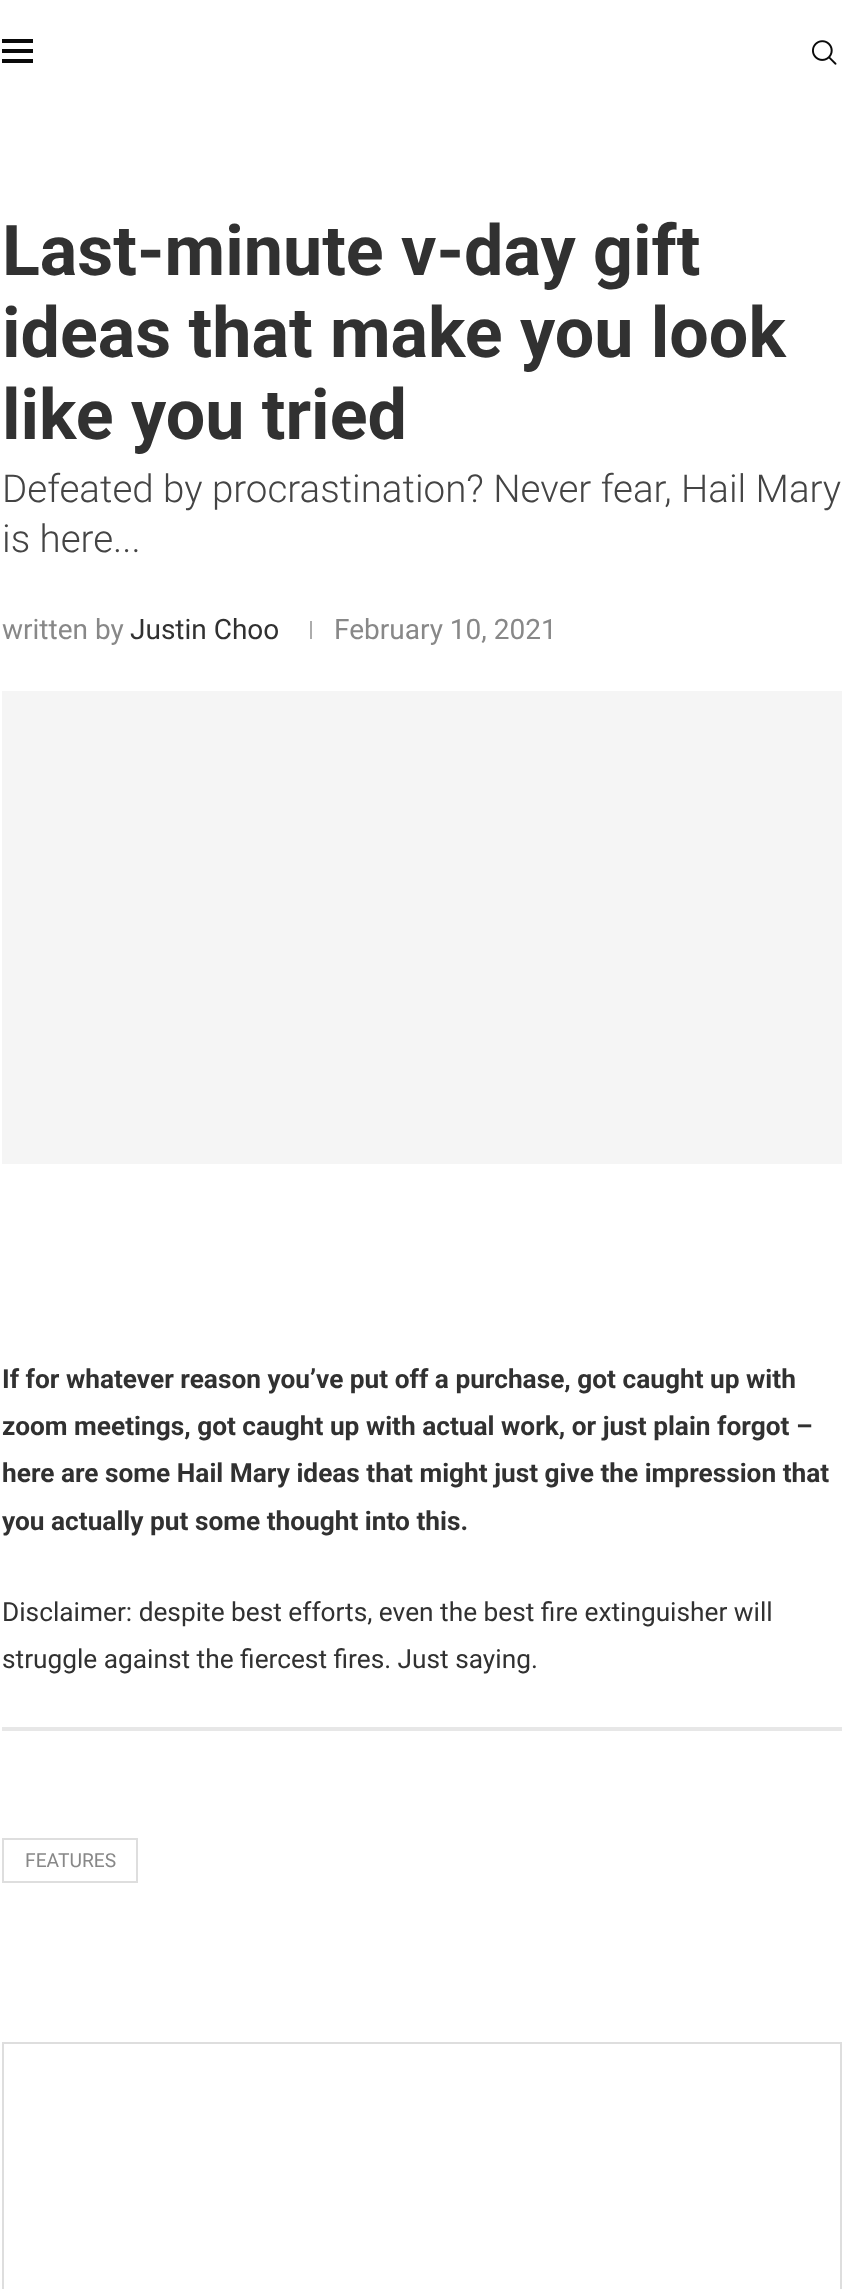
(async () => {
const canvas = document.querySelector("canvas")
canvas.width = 842
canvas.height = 2289
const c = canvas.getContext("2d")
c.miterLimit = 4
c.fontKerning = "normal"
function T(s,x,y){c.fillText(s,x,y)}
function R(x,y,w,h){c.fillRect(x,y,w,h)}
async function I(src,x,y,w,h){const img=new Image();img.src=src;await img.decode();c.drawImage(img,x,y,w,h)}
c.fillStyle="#fff"
R(0,0,842,2289)
c.fillStyle="#0a0a0a"
R(2,39,31,4)
R(2,49,31,4)
R(2,59,31,4)
await I("1.png",812,40,25,25)
c.font="bold 70px Roboto"
c.fillStyle="#313131"
T("Last-minute v-day gift",2,275)
T("ideas that make you look",2,357)
T("like you tried",2,439)
c.font="300 38.5px Roboto"
c.fillStyle="#444"
T("Defeated by procrastination? Never fear, Hail Mary",2,502)
T("is here...",2,552)
c.font="28px Roboto"
c.fillStyle="#888"
T("written by",2,639)
c.fillStyle="#313131"
T("Justin Choo",130,639)
c.fillStyle="#acacac"
R(310,621,2,18)
c.fillStyle="#888"
T("February 10, 2021",334,639)
c.fillStyle="#f5f5f5"
R(2,691,840,473)
c.font="bold 26.25px Roboto"
c.fillStyle="#313131"
T("If for whatever reason you’ve put off a purchase, got caught up with",2,1388)
T("zoom meetings, got caught up with actual work, or just plain forgot –",2,1435)
T("here are some Hail Mary ideas that might just give the impression that",2,1482)
T("you actually put some thought into this.",2,1530)
c.font="26.25px Roboto"
T("Disclaimer: despite best efforts, even the best fire extinguisher will",2,1621)
T("struggle against the fiercest fires. Just saying.",2,1668)
c.fillStyle="#e7e7e7"
R(2,1727,840,4)
c.strokeStyle="#dedede"
c.lineWidth=2
c.strokeRect(3,1839,134,43)
c.font="19.25px Roboto"
c.fillStyle="#888"
T("FEATURES",25,1867)
c.strokeRect(3,2043,838,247)
})()
